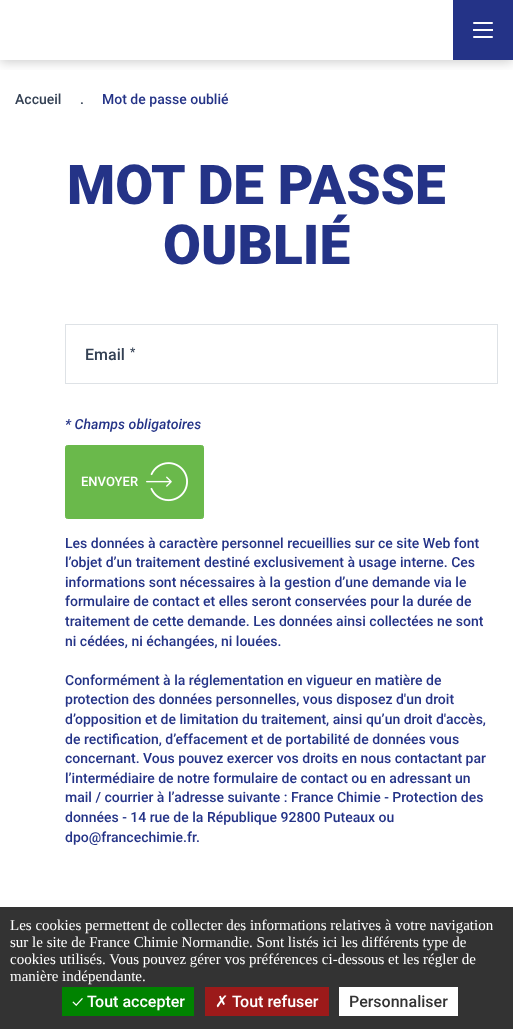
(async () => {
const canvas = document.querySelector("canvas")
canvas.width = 513
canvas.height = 1029
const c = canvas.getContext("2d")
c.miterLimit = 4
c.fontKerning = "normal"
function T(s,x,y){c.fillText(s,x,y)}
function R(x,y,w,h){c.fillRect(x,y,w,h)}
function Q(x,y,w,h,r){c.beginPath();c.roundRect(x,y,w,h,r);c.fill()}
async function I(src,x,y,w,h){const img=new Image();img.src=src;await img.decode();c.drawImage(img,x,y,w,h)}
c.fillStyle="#fff"
R(0,0,513,1029)
c.save()
c.beginPath()
c.rect(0,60,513,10)
c.clip()
c.fillStyle="#00000033"
c.filter="blur(6px)"
c.beginPath()
c.rect(0,2,513,60)
c.fill()
c.filter="none"
c.restore()
c.fillStyle="#243387"
R(453,0,60,60)
c.fillStyle="#fff"
R(473,29,20,2)
Q(473,22,20,2,1)
Q(473,36,20,2,1)
c.font="500 14px Roboto"
c.fillStyle="#344154"
T("Accueil",15,104)
T(".",80,104)
c.fillStyle="#243387"
T("Mot de passe oublié",102,104)
c.font="900 55px Roboto"
T("MOT DE PASSE",67,204)
T("OUBLIÉ",163,264)
c.strokeStyle="#dee2e6"
c.strokeRect(65.5,324.5,432,59)
c.font="500 16px Roboto"
c.fillStyle="#344154"
T("Email",85,360)
c.font="500 12px Roboto"
T("*",130,356)
c.font="italic 500 14px Roboto"
c.fillStyle="#243387"
T("* Champs obligatoires",65,429)
c.fillStyle="#6ab94b"
c.beginPath()
c.roundRect(65.5,445.5,138,73,2)
c.fill()
c.strokeStyle="#6ab94b"
c.stroke()
c.font="500 13px Roboto"
c.fillStyle="#fff"
T("ENVOYER",81,486)
await I("1.png",146,462,42,40)
c.font="500 14px Roboto"
c.fillStyle="#243387"
T("Les données à caractère personnel recueillies sur ce site Web font",65,548)
T("l’objet d’un traitement destiné exclusivement à usage interne. Ces",65,567)
T("informations sont nécessaires à la gestion d’une demande via le",65,587)
T("formulaire de contact et elles seront conservées pour la durée de",65,606)
T("traitement de cette demande. Les données ainsi collectées ne sont",65,626)
T("ni cédées, ni échangées, ni louées.",65,646)
T("Conformément à la réglementation en vigueur en matière de",65,685)
T("protection des données personnelles, vous disposez d'un droit",65,704)
T("d’opposition et de limitation du traitement, ainsi qu’un droit d'accès,",65,724)
T("de rectification, d’effacement et de portabilité de données vous",65,744)
T("concernant. Vous pouvez exercer vos droits en nous contactant par",65,763)
T("l’intermédiaire de notre formulaire de contact ou en adressant un",65,783)
T("mail / courrier à l’adresse suivante : France Chimie - Protection des",65,802)
T("données - 14 rue de la République 92800 Puteaux ou",65,822)
T("dpo@francechimie.fr",65,842)
T(".",196,842)
c.fillStyle="#333"
R(0,907,513,122)
c.font="15px Liberation Serif"
c.fillStyle="#fff"
T("Les cookies permettent de collecter des informations relatives à votre navigation",10,930)
T("sur le site de France Chimie Normandie. Sont listés ici les différents type de",10,947)
T("cookies utilisés. Vous pouvez gérer vos préférences ci-dessous et les régler de",10,964)
T("manière indépendante.",10,981)
c.fillStyle="#008300"
R(62,987,132,29)
c.font="16px Ubuntu"
c.fillStyle="#fff"
T("✓",72,1007)
c.font="500 16px Roboto"
T("Tout accepter",87,1007)
c.fillStyle="#9c1a1a"
R(205,987,124,29)
c.font="16px DejaVu Sans"
c.fillStyle="#fff"
T("✗",215,1007)
c.font="500 16px Roboto"
T("Tout refuser",232,1007)
R(339,987,119,29)
c.fillStyle="#333"
T("Personnaliser",349,1007)
})()
